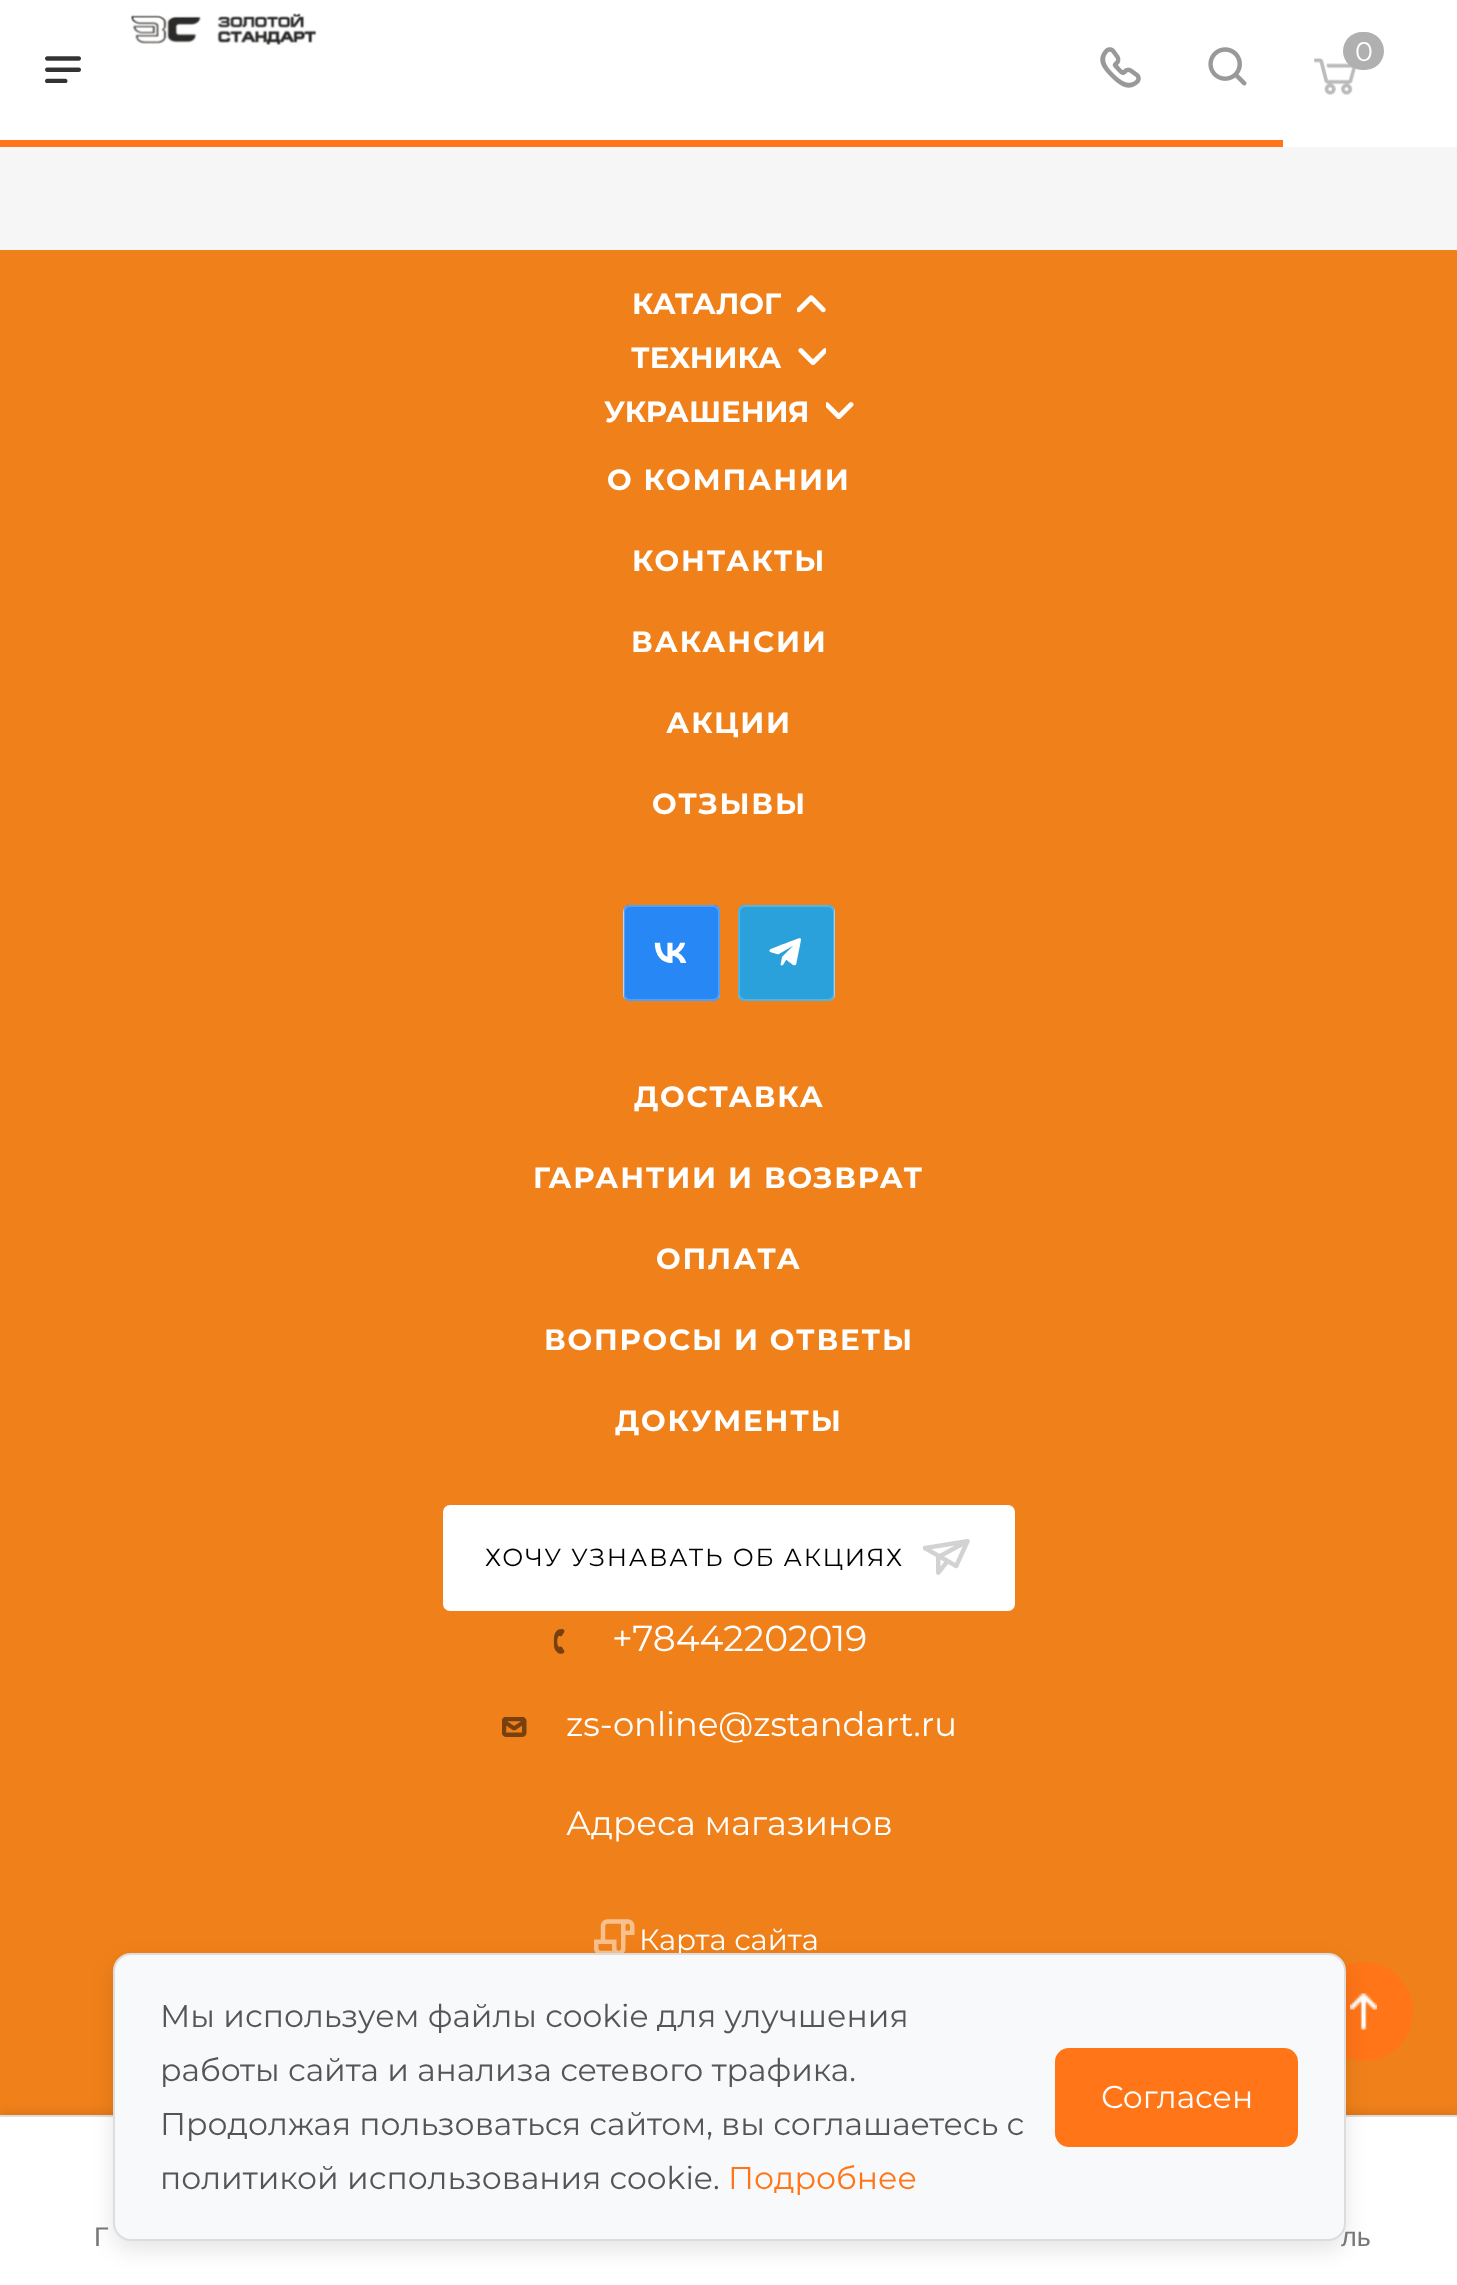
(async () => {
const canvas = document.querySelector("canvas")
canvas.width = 1457
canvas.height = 2285
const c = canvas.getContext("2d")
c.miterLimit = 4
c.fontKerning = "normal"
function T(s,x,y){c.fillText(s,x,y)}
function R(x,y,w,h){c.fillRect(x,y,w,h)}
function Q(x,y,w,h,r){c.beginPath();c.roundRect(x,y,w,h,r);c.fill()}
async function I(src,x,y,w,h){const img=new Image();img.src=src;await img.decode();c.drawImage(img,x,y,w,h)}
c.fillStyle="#f6f6f6"
R(0,0,1457,2285)
c.fillStyle="#fff"
R(0,0,1457,140)
await I("1.png",130,13,187,33)
await I("2.png",1100,47,41,41)
await I("3.png",1208,47,39,39)
await I("4.png",1314,58,42,37)
c.fillStyle="#b0b0b0"
Q(1343,32,41,38,19)
c.font="27px Montserrat"
c.fillStyle="#fff"
T("0",1355,61)
await I("5.png",45,56,36,27)
R(1283,140,174,7)
c.fillStyle="#ff7518"
R(0,140,1283,7)
c.fillStyle="#f0811a"
R(0,250,1457,1865)
c.font="bold 29.25px Montserrat"
c.fillStyle="#fff"
T("КАТАЛОГ",632,314)
await I("6.png",797,295,29,18)
T("ТЕХНИКА",631,368)
await I("7.png",798,348,28,18)
T("УКРАШЕНИЯ",604,422)
await I("8.png",826,402,28,18)
c.letterSpacing="1.8px"
T("О КОМПАНИИ",607,490)
T("КОНТАКТЫ",632,571)
T("ВАКАНСИИ",631,652)
T("АКЦИИ",666,733)
T("ОТЗЫВЫ",652,814)
Q(623,905,97,96,7)
await I("9.png",623,905,97,96)
c.beginPath()
c.roundRect(624,906,95,94,6)
c.strokeStyle="#ffffff33"
c.lineWidth=2
c.stroke()
Q(738,905,97,96,7)
await I("10.png",738,905,97,96)
c.beginPath()
c.roundRect(739,906,95,94,6)
c.stroke()
T("ДОСТАВКА",634,1107)
T("ГАРАНТИИ И ВОЗВРАТ",533,1188)
T("ОПЛАТА",656,1269)
T("ВОПРОСЫ И ОТВЕТЫ",544,1350)
T("ДОКУМЕНТЫ",615,1431)
c.beginPath()
c.roundRect(444,1506,570,104,6)
c.fill()
c.strokeStyle="#fff"
c.stroke()
c.font="24.75px Montserrat"
c.fillStyle="#000"
T("ХОЧУ УЗНАВАТЬ ОБ АКЦИЯХ",485,1566)
await I("11.png",923,1539,47,36)
await I("12.png",553,1629,12,25)
c.letterSpacing="0px"
c.font="36px Montserrat"
c.fillStyle="#fff"
T("+78442202019",612,1651)
await I("13.png",502,1717,25,20)
c.font="33.75px Montserrat"
T("zs-online@zstandart.ru",566,1736)
T("Адреса магазинов",566,1835)
await I("14.png",594,1919,41,34)
c.font="29.25px Montserrat"
T("Карта сайта",639,1950)
c.fillStyle="#ff7518"
c.beginPath()
c.arc(1363.5,2011.5,49.5,0,7)
c.fill()
await I("15.png",1350,1993,27,38)
c.fillStyle="#0000001a"
c.filter="blur(5.5px)"
c.beginPath()
c.rect(0,2113,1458,171)
c.fill()
c.filter="none"
c.fillStyle="#fff"
R(0,2117,1457,168)
c.fillStyle="#ddd"
R(0,2115,1457,2)
c.fillStyle="#0000001a"
c.filter="blur(11px)"
c.beginPath()
c.roundRect(113,1962,1233,288,18)
c.fill()
c.filter="none"
c.font="27px Liberation Sans"
c.fillStyle="#777"
T("ль",1341,2246)
c.fillStyle="#f8f9fa"
c.beginPath()
c.roundRect(114,1954,1231,286,17)
c.fill()
c.strokeStyle="#ddd"
c.stroke()
c.font="31.5px Montserrat"
c.fillStyle="#555"
T("Мы используем файлы cookie для улучшения",160,2027)
T("работы сайта и анализа сетевого трафика.",160,2081)
T("Продолжая пользоваться сайтом, вы соглашаетесь с",160,2135)
T("политикой использования cookie.",160,2189)
c.fillStyle="#ff7518"
T("Подробнее",728,2189)
Q(1055,2048,243,99,14)
c.fillStyle="#fff"
T("Согласен",1101,2108)
c.font="27px Liberation Sans"
c.fillStyle="#777"
T("Г",94,2246)
})()
